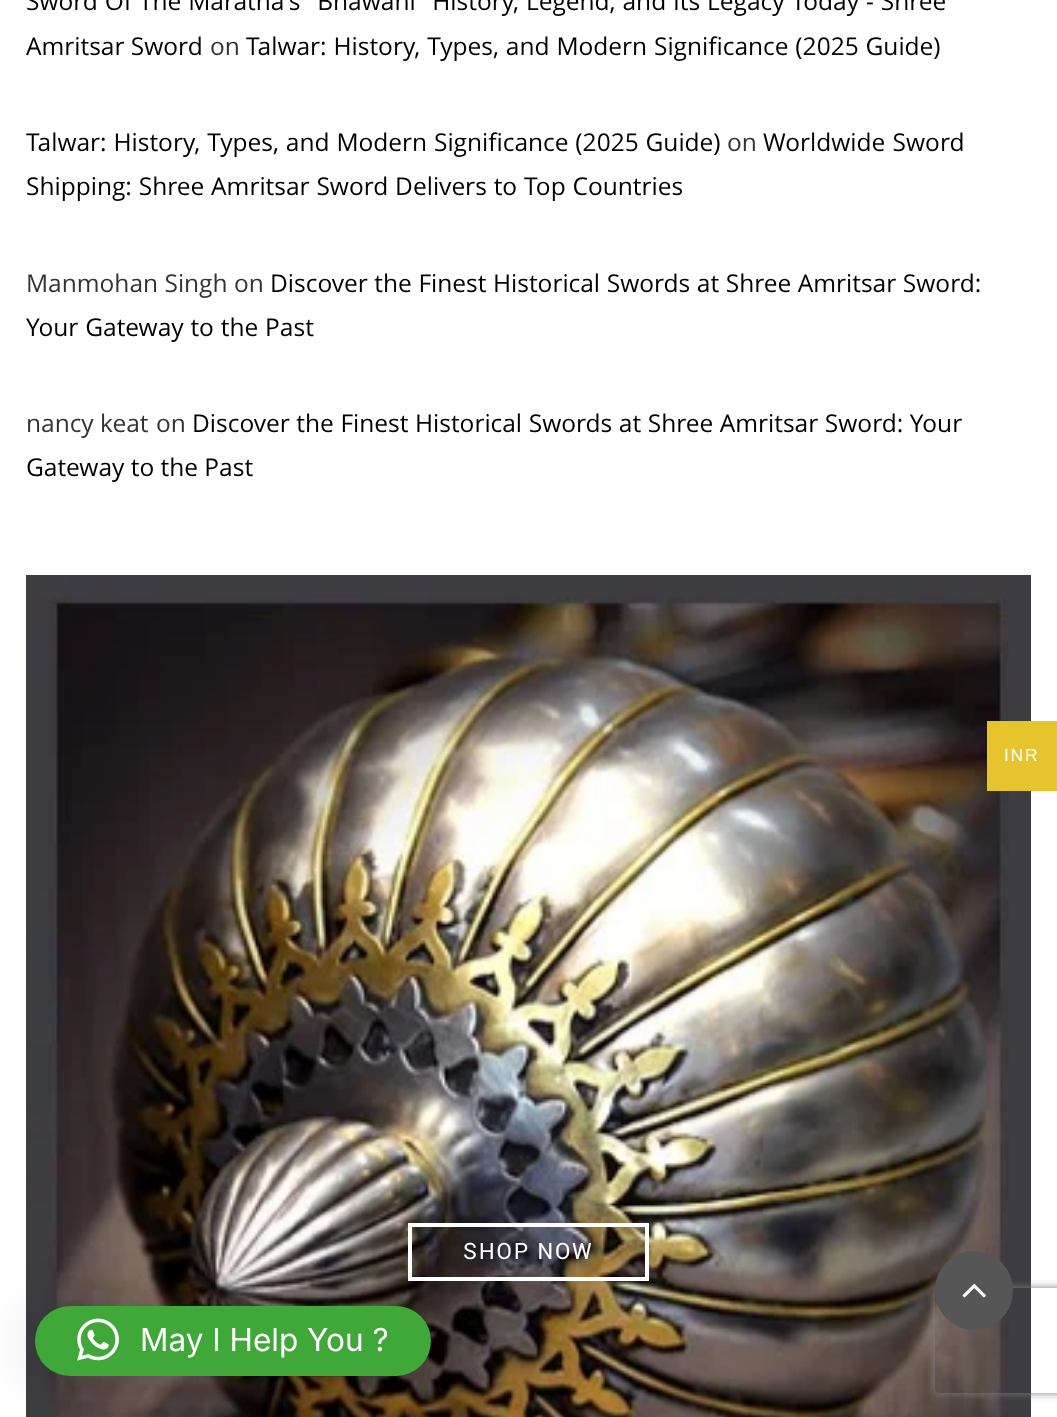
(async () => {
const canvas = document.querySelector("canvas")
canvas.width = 1057
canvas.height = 1417
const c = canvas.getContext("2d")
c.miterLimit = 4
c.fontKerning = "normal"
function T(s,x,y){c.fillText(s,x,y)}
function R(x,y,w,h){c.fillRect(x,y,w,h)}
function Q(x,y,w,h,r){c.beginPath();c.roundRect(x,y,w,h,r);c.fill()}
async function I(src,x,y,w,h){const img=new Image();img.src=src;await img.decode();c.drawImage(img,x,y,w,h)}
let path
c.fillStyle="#fff"
R(0,0,1057,1417)
c.wordSpacing="0.5px"
c.font="24.5px Open Sans"
c.fillStyle="#000"
T("Sword Of The Maratha's \"Bhawani\" History, Legend, and Its Legacy Today - Shree",26,10)
c.wordSpacing="0px"
T("Amritsar Sword",26,55)
c.fillStyle="#333"
T("on",210,55)
c.wordSpacing="0.5px"
c.fillStyle="#000"
T("Talwar: History, Types, and Modern Significance (2025 Guide)",246,55)
T("Talwar: History, Types, and Modern Significance (2025 Guide)",26,151)
c.wordSpacing="0px"
c.fillStyle="#333"
T("on",727,151)
c.wordSpacing="1px"
c.fillStyle="#000"
T("Worldwide Sword",763,151)
c.wordSpacing="0.5px"
T("Shipping: Shree Amritsar Sword Delivers to Top Countries",26,195)
c.wordSpacing="0px"
c.fillStyle="#333"
T("Manmohan Singh on",26,292)
c.wordSpacing="0.25px"
c.fillStyle="#000"
T("Discover the Finest Historical Swords at Shree Amritsar Sword:",270,292)
c.wordSpacing="0.5px"
T("Your Gateway to the Past",26,336)
c.wordSpacing="0px"
c.fillStyle="#333"
T("nancy keat",26,432)
T("on",156,432)
c.wordSpacing="0.25px"
c.fillStyle="#000"
T("Discover the Finest Historical Swords at Shree Amritsar Sword: Your",192,432)
c.wordSpacing="0px"
T("Gateway to the Past",26,476)
await I("1.png",26,575,1005,842)
c.strokeStyle="#fff"
c.lineWidth=4
c.strokeRect(410,1225,237,54)
c.letterSpacing="1.75px"
c.font="22.5px Roboto"
c.fillStyle="#fff"
T("SHOP NOW",463,1259)
c.fillStyle="#e6c42d"
R(987,721,70,70)
c.font="17.5px Liberation Sans"
c.fillStyle="#fff"
T("INR",1004,761)
c.save()
path = new Path2D("M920 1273h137v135h-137zm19 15h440c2 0 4 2 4 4v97c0 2-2 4-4 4h-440c-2 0-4-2-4-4v-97c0-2 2-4 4-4z")
c.clip(path,"evenodd")
c.fillStyle="#808080"
c.filter="blur(4.5px)"
c.beginPath()
c.roundRect(935,1288,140,105,4)
c.fill()
c.filter="none"
c.restore()
c.fillStyle="#565656"
c.beginPath()
c.roundRect(937,1253,74,75,37)
c.fill()
c.strokeStyle="#565656"
c.stroke()
await I("2.png",962,1283,24,15)
c.fillStyle="#00000029"
c.filter="blur(28px)"
c.beginPath()
c.roundRect(35,1309,396,70,35)
c.fill()
c.filter="none"
c.fillStyle="#40a839"
Q(35,1306,396,70,35)
await I("3.png",77,1318,42,43)
c.letterSpacing="0px"
c.font="31.5px Inter"
c.fillStyle="#fff"
T("May I Help You ?",140,1351)
})()
